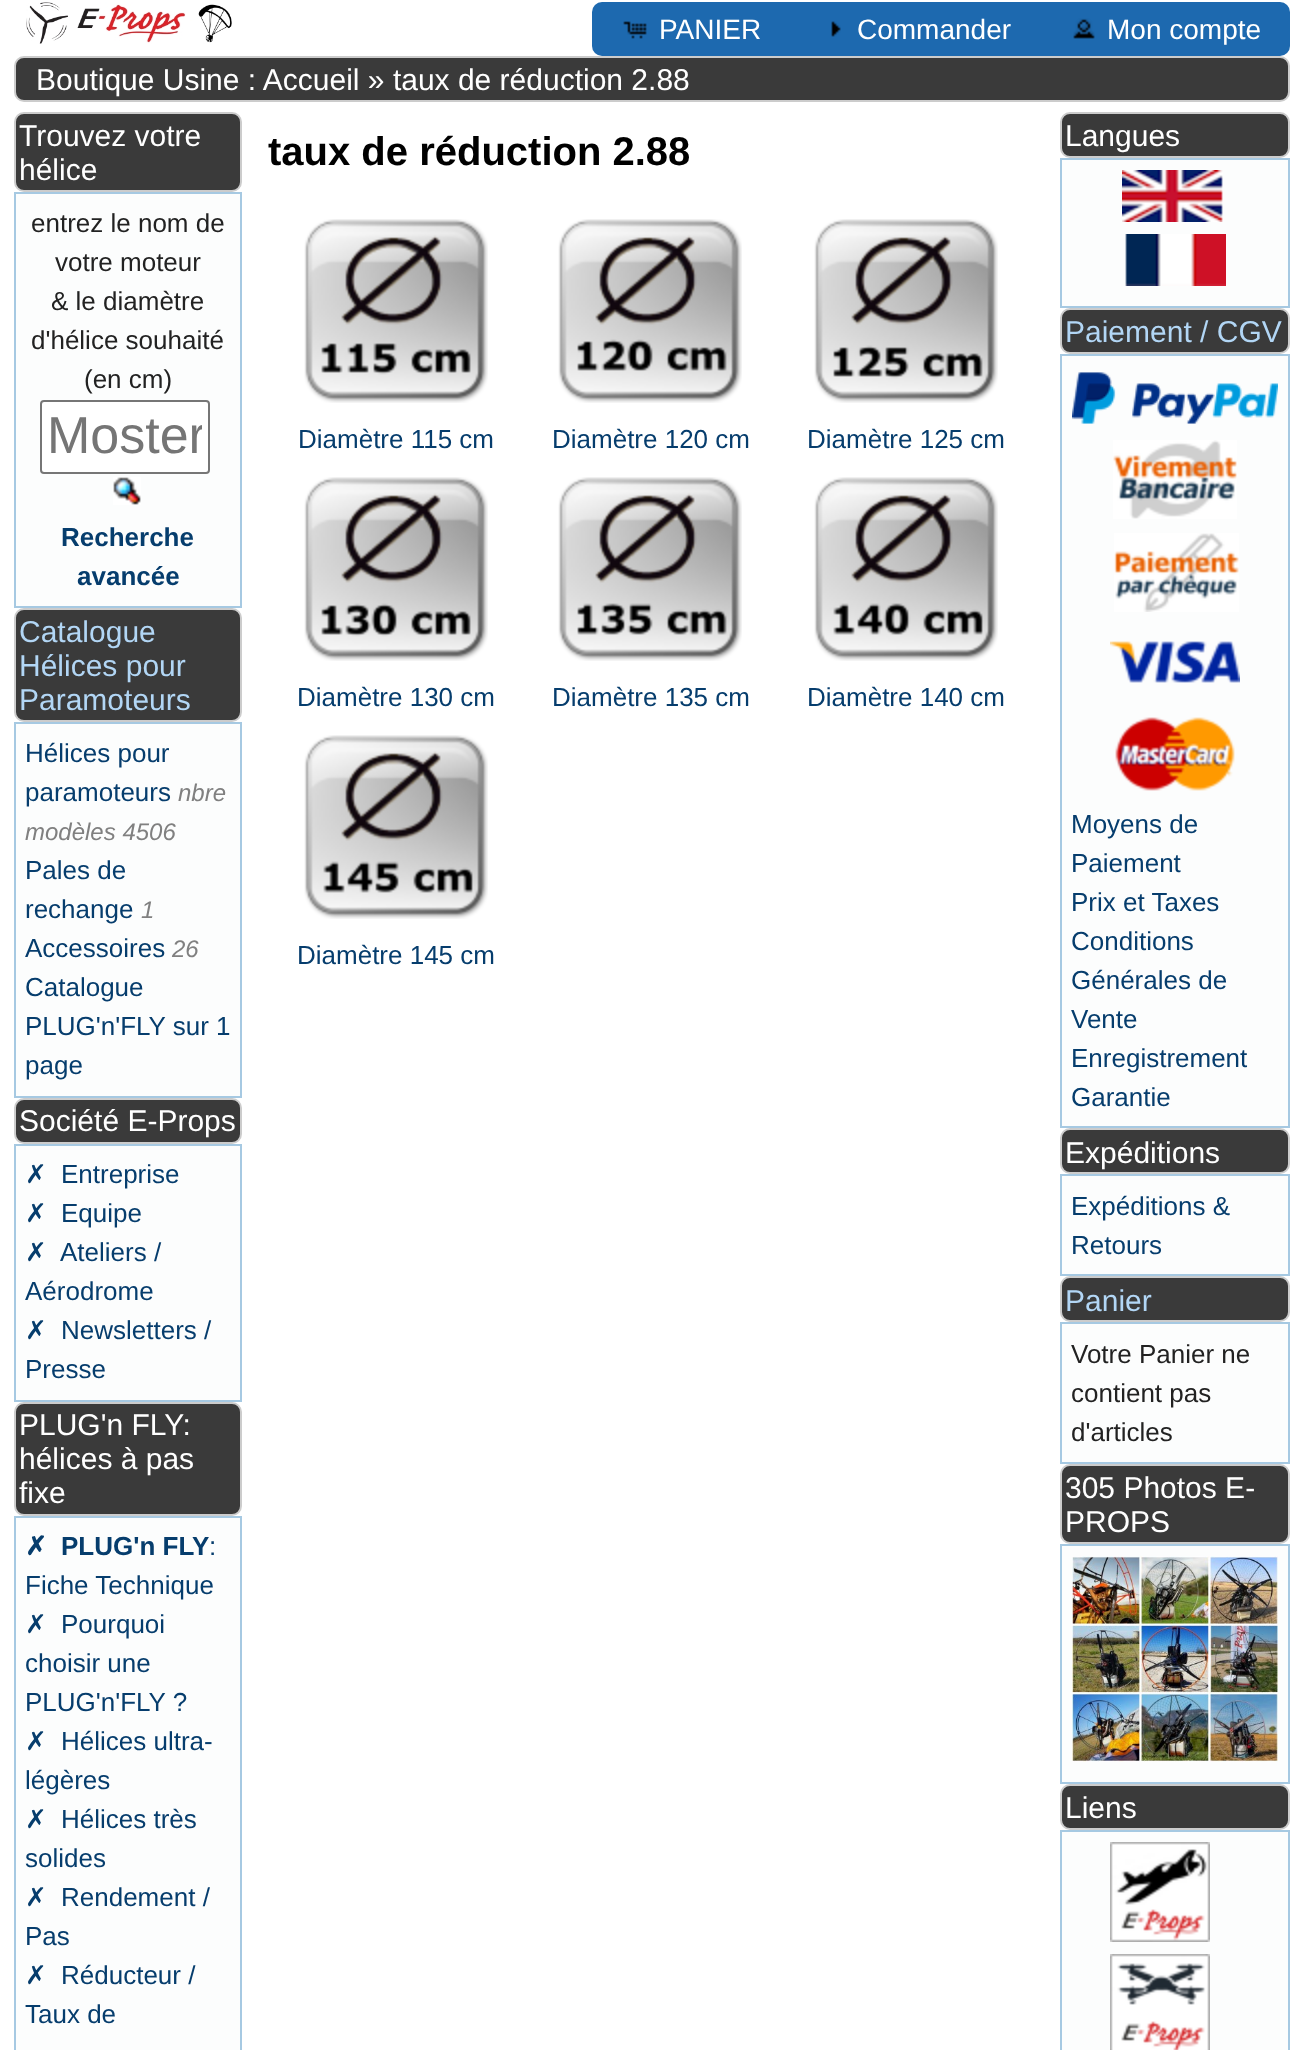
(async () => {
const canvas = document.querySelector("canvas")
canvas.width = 1301
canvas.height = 2050
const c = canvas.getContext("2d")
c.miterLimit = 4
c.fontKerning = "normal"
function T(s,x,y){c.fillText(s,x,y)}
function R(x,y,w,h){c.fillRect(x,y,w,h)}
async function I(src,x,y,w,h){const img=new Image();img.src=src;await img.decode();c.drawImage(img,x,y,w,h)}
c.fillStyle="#fff"
R(0,0,1301,2050)
await I("1.png",26,2,206,42)
c.fillStyle="#1d69af"
c.beginPath()
c.roundRect(592,2,198,54,[10,0,0,10])
c.fill()
await I("2.png",623,21,24,18)
c.font="28px Liberation Sans"
c.fillStyle="#fff"
T("PANIER",659,39)
c.fillStyle="#1d69af"
R(790,2,250,54)
await I("3.png",831,21,10,16)
c.fillStyle="#fff"
T("Commander",857,39)
c.fillStyle="#1d69af"
c.beginPath()
c.roundRect(1040,2,250,54,[0,10,10,0])
c.fill()
await I("4.png",1073,18,22,21)
c.fillStyle="#fff"
T("Mon compte",1107,39)
c.fillStyle="#3a3a3a"
c.beginPath()
c.roundRect(15,57,1274,44,9)
c.fill()
c.strokeStyle="#ccc"
c.lineWidth=2
c.stroke()
c.font="30px Liberation Sans"
c.fillStyle="#fff"
T("Boutique Usine : Accueil » taux de réduction 2.88",36,90)
c.fillStyle="#3a3a3a"
c.beginPath()
c.roundRect(15,113,226,78,9)
c.fill()
c.stroke()
c.fillStyle="#fff"
T("Trouvez votre",19,146)
T("hélice",19,180)
c.fillStyle="#fcfdfd"
c.beginPath()
c.rect(15,193,226,414)
c.fill()
c.strokeStyle="#a6c9e2"
c.stroke()
c.font="26px Liberation Sans"
c.fillStyle="#222"
T("entrez le nom de",31,232)
T("votre moteur",55,271)
T("& le diamètre",51,310)
T("d'hélice souhaité",31,349)
T("(en cm)",84,388)
c.fillStyle="#fff"
c.beginPath()
c.roundRect(41,401,168,72,3)
c.fill()
c.strokeStyle="#767676"
c.stroke()
c.save()
c.beginPath()
c.rect(48,406,154,62)
c.clip()
c.font="52px Liberation Sans"
c.fillStyle="#757575"
T("Moster",47,453)
c.restore()
await I("5.png",113,477,28,28)
c.font="bold 26px Liberation Sans"
c.fillStyle="#063d6d"
T("Recherche",61,546)
T("avancée",77,585)
c.fillStyle="#3a3a3a"
c.beginPath()
c.roundRect(15,609,226,112,9)
c.fill()
c.strokeStyle="#ccc"
c.stroke()
c.font="30px Liberation Sans"
c.fillStyle="#b2d6f5"
T("Catalogue",19,642)
T("Hélices pour",19,676)
T("Paramoteurs",19,710)
c.fillStyle="#fcfdfd"
c.beginPath()
c.rect(15,723,226,374)
c.fill()
c.strokeStyle="#a6c9e2"
c.stroke()
c.font="26px Liberation Sans"
c.fillStyle="#063d6d"
T("Hélices pour",25,762)
T("paramoteurs",25,801)
c.font="italic 24px Liberation Sans"
c.fillStyle="#808080"
T("nbre",178,801)
T("modèles 4506",25,840)
c.font="26px Liberation Sans"
c.fillStyle="#063d6d"
T("Pales de",25,879)
T("rechange",25,918)
c.font="italic 24px Liberation Sans"
c.fillStyle="#808080"
T("1",141,918)
c.font="26px Liberation Sans"
c.fillStyle="#063d6d"
T("Accessoires",25,957)
c.font="italic 24px Liberation Sans"
c.fillStyle="#808080"
T("26",172,957)
c.font="26px Liberation Sans"
c.fillStyle="#063d6d"
T("Catalogue",25,996)
T("PLUG'n'FLY sur 1",25,1035)
T("page",25,1074)
c.fillStyle="#3a3a3a"
c.beginPath()
c.roundRect(15,1099,226,44,9)
c.fill()
c.strokeStyle="#ccc"
c.stroke()
c.font="30px Liberation Sans"
c.fillStyle="#fff"
T("Société E-Props",19,1131)
c.fillStyle="#fcfdfd"
c.beginPath()
c.rect(15,1145,226,256)
c.fill()
c.strokeStyle="#a6c9e2"
c.stroke()
c.font="26px DejaVu Sans"
c.fillStyle="#063d6d"
T("✗",25,1183)
c.font="26px Liberation Sans"
T("Entreprise",61,1183)
c.font="26px DejaVu Sans"
T("✗",25,1222)
c.font="26px Liberation Sans"
T("Equipe",61,1222)
c.font="26px DejaVu Sans"
T("✗",25,1261)
c.font="26px Liberation Sans"
T("Ateliers /",60,1261)
T("Aérodrome",25,1300)
c.font="26px DejaVu Sans"
T("✗",25,1339)
c.font="26px Liberation Sans"
T("Newsletters /",61,1339)
T("Presse",25,1378)
c.fillStyle="#3a3a3a"
c.beginPath()
c.roundRect(15,1403,226,112,9)
c.fill()
c.strokeStyle="#ccc"
c.stroke()
c.font="30px Liberation Sans"
c.fillStyle="#fff"
T("PLUG'n FLY:",19,1435)
T("hélices à pas",19,1469)
T("fixe",19,1503)
c.fillStyle="#fcfdfd"
c.beginPath()
c.rect(15,1517,226,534)
c.fill()
c.strokeStyle="#a6c9e2"
c.stroke()
c.font="bold 26px DejaVu Sans"
c.fillStyle="#063d6d"
T("✗",25,1555)
c.font="bold 26px Liberation Sans"
T("PLUG'n FLY",61,1555)
c.font="26px Liberation Sans"
T(":",209,1555)
T("Fiche Technique",25,1594)
c.font="26px DejaVu Sans"
T("✗",25,1633)
c.font="26px Liberation Sans"
T("Pourquoi",61,1633)
T("choisir une",25,1672)
T("PLUG'n'FLY ?",25,1711)
c.font="26px DejaVu Sans"
T("✗",25,1750)
c.font="26px Liberation Sans"
T("Hélices ultra-",61,1750)
T("légères",25,1789)
c.font="26px DejaVu Sans"
T("✗",25,1828)
c.font="26px Liberation Sans"
T("Hélices très",61,1828)
T("solides",25,1867)
c.font="26px DejaVu Sans"
T("✗",25,1906)
c.font="26px Liberation Sans"
T("Rendement /",61,1906)
T("Pas",25,1945)
c.font="26px DejaVu Sans"
T("✗",25,1984)
c.font="26px Liberation Sans"
T("Réducteur /",61,1984)
T("Taux de",25,2023)
c.font="bold 40px Liberation Sans"
c.fillStyle="#000"
T("taux de réduction 2.88",268,165)
await I("6.png",304,219,184,184)
c.font="26px Liberation Sans"
c.fillStyle="#063d6d"
T("Diamètre 115 cm",298,448)
await I("7.png",558,219,184,184)
T("Diamètre 120 cm",552,448)
await I("8.png",814,219,184,184)
T("Diamètre 125 cm",807,448)
await I("9.png",304,477,184,184)
T("Diamètre 130 cm",297,706)
await I("10.png",558,477,184,184)
T("Diamètre 135 cm",552,706)
await I("11.png",814,477,184,184)
T("Diamètre 140 cm",807,706)
await I("12.png",304,735,184,184)
T("Diamètre 145 cm",297,964)
c.fillStyle="#3a3a3a"
c.beginPath()
c.roundRect(1061,113,228,44,9)
c.fill()
c.strokeStyle="#ccc"
c.stroke()
c.font="30px Liberation Sans"
c.fillStyle="#fff"
T("Langues",1065,146)
c.fillStyle="#fcfdfd"
c.beginPath()
c.rect(1061,159,228,148)
c.fill()
c.strokeStyle="#a6c9e2"
c.stroke()
await I("13.png",1122,170,101,52)
await I("14.png",1125,234,101,52)
c.fillStyle="#3a3a3a"
c.beginPath()
c.roundRect(1061,309,228,44,9)
c.fill()
c.strokeStyle="#ccc"
c.stroke()
c.fillStyle="#b2d6f5"
T("Paiement / CGV",1065,342)
c.fillStyle="#fcfdfd"
c.beginPath()
c.rect(1061,355,228,772)
c.fill()
c.strokeStyle="#a6c9e2"
c.stroke()
await I("15.png",1072,372,206,52)
await I("16.png",1113,440,124,79)
await I("17.png",1114,533,125,79)
await I("18.png",1110,641,130,42)
await I("19.png",1115,717,120,74)
c.font="26px Liberation Sans"
c.fillStyle="#063d6d"
T("Moyens de",1071,833)
T("Paiement",1071,872)
T("Prix et Taxes",1071,911)
T("Conditions",1071,950)
T("Générales de",1071,989)
T("Vente",1071,1028)
T("Enregistrement",1071,1067)
T("Garantie",1071,1106)
c.fillStyle="#3a3a3a"
c.beginPath()
c.roundRect(1061,1129,228,44,9)
c.fill()
c.strokeStyle="#ccc"
c.stroke()
c.font="30px Liberation Sans"
c.fillStyle="#fff"
T("Expéditions",1065,1163)
c.fillStyle="#fcfdfd"
c.beginPath()
c.rect(1061,1175,228,100)
c.fill()
c.strokeStyle="#a6c9e2"
c.stroke()
c.font="26px Liberation Sans"
c.fillStyle="#063d6d"
T("Expéditions &",1071,1215)
T("Retours",1071,1254)
c.fillStyle="#3a3a3a"
c.beginPath()
c.roundRect(1061,1277,228,44,9)
c.fill()
c.strokeStyle="#ccc"
c.stroke()
c.font="30px Liberation Sans"
c.fillStyle="#b2d6f5"
T("Panier",1065,1311)
c.fillStyle="#fcfdfd"
c.beginPath()
c.rect(1061,1323,228,140)
c.fill()
c.strokeStyle="#a6c9e2"
c.stroke()
c.font="26px Liberation Sans"
c.fillStyle="#222"
T("Votre Panier ne",1071,1363)
T("contient pas",1071,1402)
T("d'articles",1071,1441)
c.fillStyle="#3a3a3a"
c.beginPath()
c.roundRect(1061,1465,228,78,9)
c.fill()
c.strokeStyle="#ccc"
c.stroke()
c.font="30px Liberation Sans"
c.fillStyle="#fff"
T("305 Photos E-",1065,1498)
T("PROPS",1065,1532)
c.fillStyle="#fcfdfd"
c.beginPath()
c.rect(1061,1545,228,238)
c.fill()
c.strokeStyle="#a6c9e2"
c.stroke()
await I("20.png",1072,1556,206,206)
c.fillStyle="#3a3a3a"
c.beginPath()
c.roundRect(1061,1785,228,44,9)
c.fill()
c.strokeStyle="#ccc"
c.stroke()
c.fillStyle="#fff"
T("Liens",1065,1818)
c.fillStyle="#fcfdfd"
c.beginPath()
c.rect(1061,1831,228,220)
c.fill()
c.strokeStyle="#a6c9e2"
c.stroke()
await I("21.png",1110,1842,100,100)
await I("22.png",1110,1954,100,96)
})()
